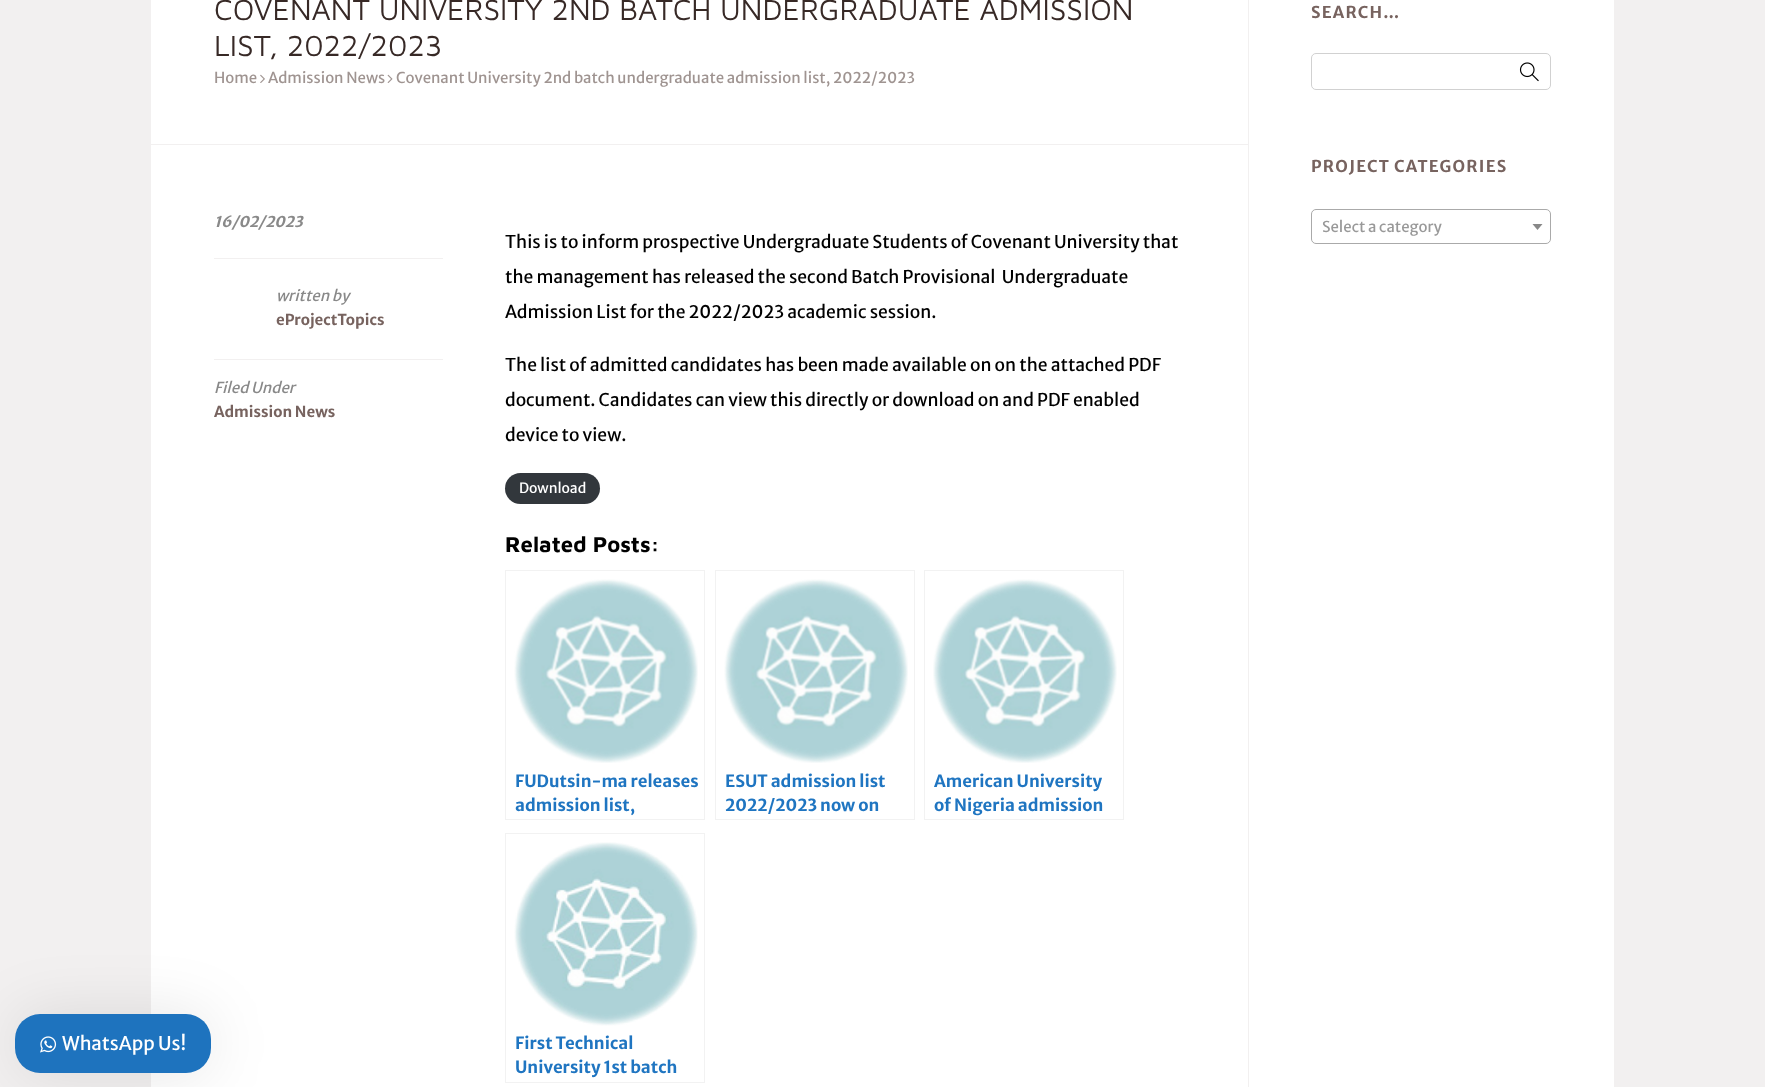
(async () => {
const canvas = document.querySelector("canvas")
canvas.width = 1765
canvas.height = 1087
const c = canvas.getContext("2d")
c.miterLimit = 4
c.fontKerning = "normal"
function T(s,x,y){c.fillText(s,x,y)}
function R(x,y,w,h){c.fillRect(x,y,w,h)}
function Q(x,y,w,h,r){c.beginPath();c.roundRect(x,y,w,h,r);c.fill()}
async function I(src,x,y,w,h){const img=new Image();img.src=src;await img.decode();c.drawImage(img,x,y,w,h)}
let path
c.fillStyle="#f2f0f0"
R(0,0,1765,1087)
c.fillStyle="#fff"
R(151,0,1463,1087)
c.fillStyle="#0000001a"
c.filter="blur(31px)"
c.beginPath()
c.roundRect(15,1014,196,59,25)
c.fill()
c.filter="none"
c.fillStyle="#1e73be"
Q(15,1014,196,59,25)
await I("1.png",40,1036,17,17)
c.font="18.75px Merriweather Sans"
c.fillStyle="#fff"
T("WhatsApp Us!",62,1050)
c.fillStyle="#f2f0f0"
R(151,144,1098,1)
c.font="30px Maven Pro"
c.fillStyle="#372926"
T("COVENANT UNIVERSITY 2ND BATCH UNDERGRADUATE ADMISSION",214,20)
T("LIST, 2022/2023",214,56)
c.font="15px Merriweather Sans"
c.fillStyle="#9f9491"
T("Home",214,83)
await I("2.png",260,74,5,9)
T("Admission News",268,83)
await I("3.png",387,74,6,9)
T("Covenant University 2nd batch undergraduate admission list, 2022/2023",396,83)
c.font="italic bold 15px Merriweather Sans"
c.fillStyle="#898989"
T("16/02/2023",214,227)
c.fillStyle="#f2f0f0"
R(214,258,229,1)
R(214,359,229,1)
c.font="italic 15px Merriweather Sans"
c.fillStyle="#898989"
T("written by",276,301)
c.font="bold 15px Merriweather Sans"
c.fillStyle="#77635f"
T("eProjectTopics",276,325)
c.font="italic 15px Merriweather Sans"
c.fillStyle="#898989"
T("Filed Under",214,393)
c.font="bold 15px Merriweather Sans"
c.fillStyle="#77635f"
T("Admission News",214,417)
c.font="17.5px Merriweather Sans"
c.fillStyle="#000"
T("This is to inform prospective Undergraduate Students of Covenant University that",505,248)
T("the management has released the second Batch Provisional  Undergraduate",505,283)
T("Admission List for the 2022/2023 academic session.",505,318)
T("The list of admitted candidates has been made available on on the attached PDF",505,371)
T("document. Candidates can view this directly or download on and PDF enabled",505,406)
T("device to view.",505,441)
c.fillStyle="#32373c"
Q(505,473,95,31,15.5)
c.font="14px Merriweather Sans"
c.fillStyle="#fff"
T("Download",519,493)
c.font="bold 22px Maven Pro"
c.fillStyle="#000"
T("Related Posts:",505,552)
c.strokeStyle="#f2f2f2"
c.strokeRect(505.5,570.5,199,249)
await I("4.png",514,579,184,184)
c.font="bold 16.75px Merriweather Sans"
c.fillStyle="#1f75c1"
T("FUDutsin-ma releases",515,787)
T("admission list,",515,811)
c.strokeRect(715.5,570.5,199,249)
await I("5.png",724,579,184,184)
T("ESUT admission list",725,787)
T("2022/2023 now on",725,811)
c.strokeRect(924.5,570.5,199,249)
await I("6.png",933,579,184,184)
T("American University",934,787)
T("of Nigeria admission",934,811)
c.strokeRect(505.5,833.5,199,249)
await I("7.png",514,842,184,184)
T("First Technical",515,1049)
T("University 1st batch",515,1073)
c.fillStyle="#f2f0f0"
R(1248,0,1,1087)
c.letterSpacing="1.25px"
c.font="bold 16.25px Merriweather Sans"
c.fillStyle="#77635f"
T("SEARCH…",1311,18)
c.beginPath()
c.roundRect(1311.5,53.5,239,36,4.5)
c.strokeStyle="#d1d1d1"
c.stroke()
await I("8.png",1519,62,20,20)
T("PROJECT CATEGORIES",1311,172)
c.beginPath()
c.roundRect(1311.5,209.5,239,34,4.5)
c.strokeStyle="#aaa"
c.stroke()
c.letterSpacing="0px"
c.font="15px Merriweather Sans"
c.fillStyle="#999"
T("Select a category",1322,232)
c.fillStyle="#888"
path = new Path2D("M1532.5 224h10l-5 6z")
c.fill(path)
})()
